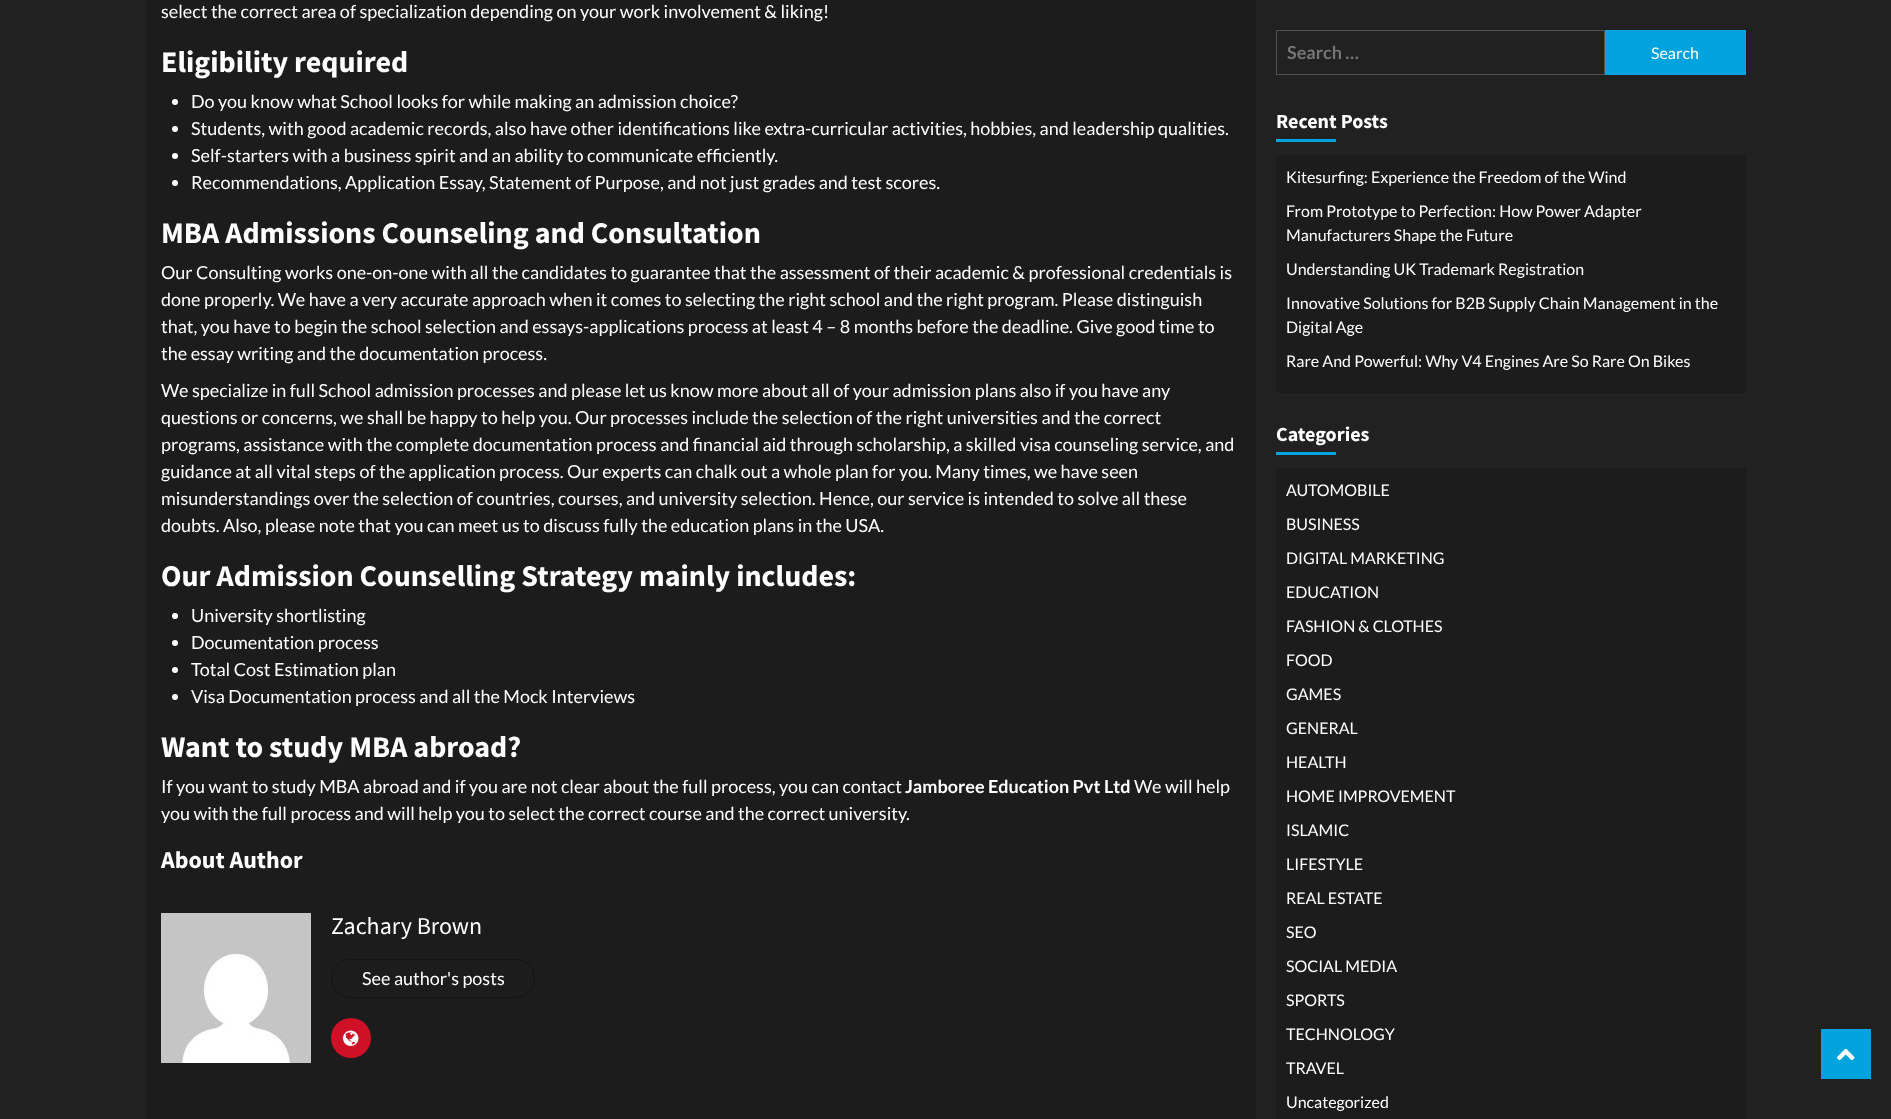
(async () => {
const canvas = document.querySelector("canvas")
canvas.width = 1891
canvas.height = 1119
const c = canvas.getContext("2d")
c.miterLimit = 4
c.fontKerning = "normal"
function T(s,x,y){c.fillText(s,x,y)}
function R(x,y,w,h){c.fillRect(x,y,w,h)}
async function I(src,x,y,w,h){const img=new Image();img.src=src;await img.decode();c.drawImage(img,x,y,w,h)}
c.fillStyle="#212121"
R(0,0,1891,1119)
c.fillStyle="#1c1c1c"
R(146,0,1110,1119)
c.font="18px Lato"
c.fillStyle="#fff"
T("select the correct area of specialization depending on your work involvement & liking!",161,18)
c.font="bold 30px Source Sans Pro"
T("Eligibility required",161,72)
c.beginPath()
c.arc(175,102,3,0,7)
c.fill()
c.font="18px Lato"
T("Do you know what School looks for while making an admission choice?",191,108)
c.beginPath()
c.arc(175,129,3,0,7)
c.fill()
T("Students, with good academic records, also have other identifications like extra-curricular activities, hobbies, and leadership qualities.",191,135)
c.beginPath()
c.arc(175,156,3,0,7)
c.fill()
T("Self-starters with a business spirit and an ability to communicate efficiently.",191,162)
c.beginPath()
c.arc(175,183,3,0,7)
c.fill()
T("Recommendations, Application Essay, Statement of Purpose, and not just grades and test scores.",191,189)
c.font="bold 30px Source Sans Pro"
T("MBA Admissions Counseling and Consultation",161,243)
c.font="18px Lato"
T("Our Consulting works one-on-one with all the candidates to guarantee that the assessment of their academic & professional credentials is",161,279)
T("done properly. We have a very accurate approach when it comes to selecting the right school and the right program. Please distinguish",161,306)
T("that, you have to begin the school selection and essays-applications process at least 4 – 8 months before the deadline. Give good time to",161,333)
T("the essay writing and the documentation process.",161,360)
T("We specialize in full School admission processes and please let us know more about all of your admission plans also if you have any",161,397)
T("questions or concerns, we shall be happy to help you. Our processes include the selection of the right universities and the correct",161,424)
T("programs, assistance with the complete documentation process and financial aid through scholarship, a skilled visa counseling service, and",161,451)
T("guidance at all vital steps of the application process. Our experts can chalk out a whole plan for you. Many times, we have seen",161,478)
T("misunderstandings over the selection of countries, courses, and university selection. Hence, our service is intended to solve all these",161,505)
T("doubts. Also, please note that you can meet us to discuss fully the education plans in the USA.",161,532)
c.font="bold 30px Source Sans Pro"
T("Our Admission Counselling Strategy mainly includes:",161,586)
c.beginPath()
c.arc(175,616,3,0,7)
c.fill()
c.font="18px Lato"
T("University shortlisting",191,622)
c.beginPath()
c.arc(175,643,3,0,7)
c.fill()
T("Documentation process",191,649)
c.beginPath()
c.arc(175,670,3,0,7)
c.fill()
T("Total Cost Estimation plan",191,676)
c.beginPath()
c.arc(175,697,3,0,7)
c.fill()
T("Visa Documentation process and all the Mock Interviews",191,703)
c.font="bold 30px Source Sans Pro"
T("Want to study MBA abroad?",161,757)
c.font="18px Lato"
T("If you want to study MBA abroad and if you are not clear about the full process, you can contact",161,793)
c.font="bold 18px Lato"
T("Jamboree Education Pvt Ltd",905,793)
c.font="18px Lato"
T("We will help",1134,793)
T("you with the full process and will help you to select the correct course and the correct university.",161,820)
c.font="bold 24px Source Sans Pro"
T("About Author",161,868)
await I("1.png",161,913,150,150)
c.font="24px Source Sans Pro"
T("Zachary Brown",331,934)
c.beginPath()
c.roundRect(331.5,959.5,203,38,19)
c.strokeStyle="#141414"
c.stroke()
c.font="18px Lato"
T("See author's posts",362,985)
c.fillStyle="#ce1126"
c.beginPath()
c.arc(351,1038,20,0,7)
c.fill()
await I("2.png",343,1030,16,16)
c.strokeStyle="#515151"
c.strokeRect(1276.5,30.5,328,44)
c.font="bold 18px Lato"
c.fillStyle="#757575"
T("Search …",1287,59)
c.fillStyle="#00a3dd"
R(1605,30,141,45)
c.font="16px Lato"
c.fillStyle="#fff"
T("Search",1651,59)
c.font="bold 20px Source Sans Pro"
T("Recent Posts",1276,128)
c.fillStyle="#00a3dd"
R(1276,139,60,3)
c.fillStyle="#1c1c1c"
R(1276,155,470,238)
c.font="16px Lato"
c.fillStyle="#fff"
T("Kitesurfing: Experience the Freedom of the Wind",1286,183)
T("From Prototype to Perfection: How Power Adapter",1286,217)
T("Manufacturers Shape the Future",1286,241)
T("Understanding UK Trademark Registration",1286,275)
T("Innovative Solutions for B2B Supply Chain Management in the",1286,309)
T("Digital Age",1286,333)
T("Rare And Powerful: Why V4 Engines Are So Rare On Bikes",1286,367)
c.font="bold 20px Source Sans Pro"
T("Categories",1276,441)
c.fillStyle="#00a3dd"
R(1276,452,60,3)
c.fillStyle="#1c1c1c"
R(1276,468,470,651)
c.font="16px Lato"
c.fillStyle="#fff"
T("AUTOMOBILE",1286,496)
T("BUSINESS",1286,530)
T("DIGITAL MARKETING",1286,564)
T("EDUCATION",1286,598)
T("FASHION & CLOTHES",1286,632)
T("FOOD",1286,666)
T("GAMES",1286,700)
T("GENERAL",1286,734)
T("HEALTH",1286,768)
T("HOME IMPROVEMENT",1286,802)
T("ISLAMIC",1286,836)
T("LIFESTYLE",1286,870)
T("REAL ESTATE",1286,904)
T("SEO",1286,938)
T("SOCIAL MEDIA",1286,972)
T("SPORTS",1286,1006)
T("TECHNOLOGY",1286,1040)
T("TRAVEL",1286,1074)
T("Uncategorized",1286,1108)
c.fillStyle="#00a3dd"
R(1821,1029,50,50)
await I("3.png",1837,1048,18,13)
})()
